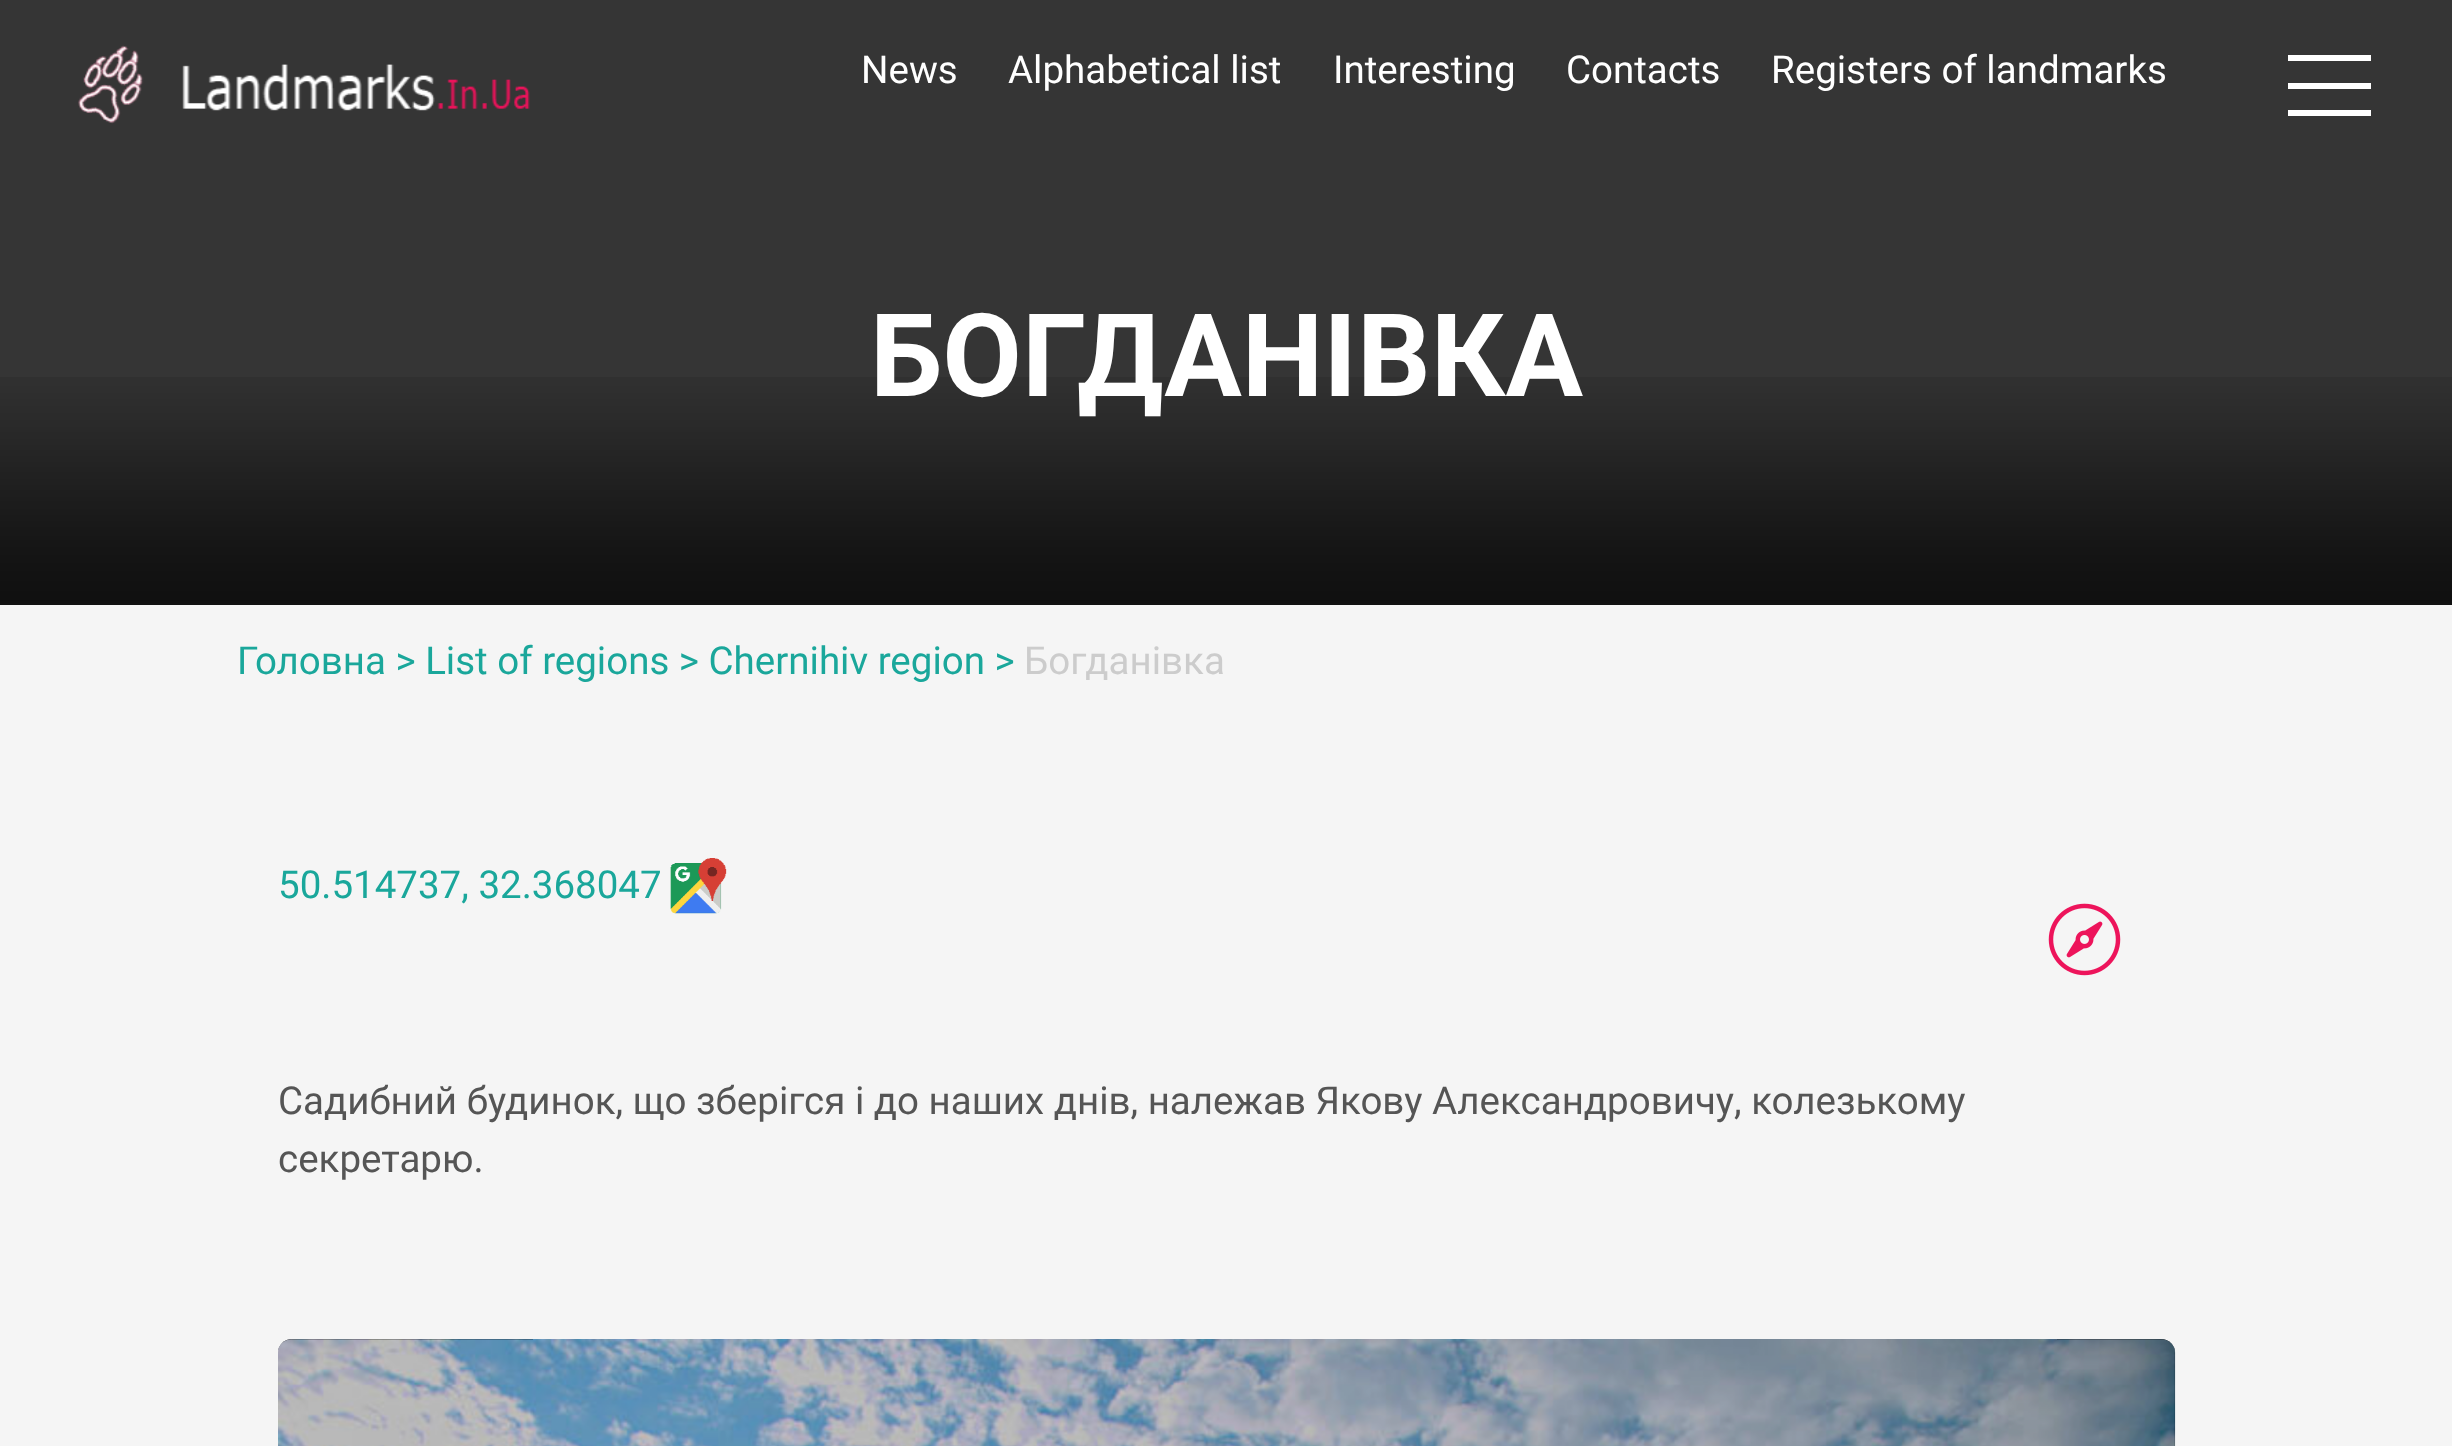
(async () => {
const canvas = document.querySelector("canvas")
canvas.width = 2452
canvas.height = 1446
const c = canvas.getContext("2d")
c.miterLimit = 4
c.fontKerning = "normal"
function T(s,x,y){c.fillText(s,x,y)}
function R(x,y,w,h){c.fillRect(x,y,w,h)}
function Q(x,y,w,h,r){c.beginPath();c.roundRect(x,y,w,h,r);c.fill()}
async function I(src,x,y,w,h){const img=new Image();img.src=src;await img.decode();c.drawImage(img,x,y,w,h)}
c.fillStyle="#f5f5f5"
R(0,0,2452,1446)
c.fillStyle="#353535"
R(0,0,2452,605)
await I("1.png",78,45,452,79)
c.font="38.5px Roboto"
c.fillStyle="#fff"
T("News",861,83)
T("Alphabetical list",1008,83)
T("Interesting",1333,83)
T("Contacts",1566,83)
T("Registers of landmarks",1771,83)
R(2288,83,83,6)
R(2288,55,83,6)
R(2288,110,83,6)
await I("2.png",0,377,2452,228)
c.font="bold 115.5px Roboto"
T("БОГДАНІВКА",870,396)
c.font="38.5px Roboto"
c.fillStyle="#1aa79b"
T("Головна > List of regions > Chernihiv region >",237,674)
c.fillStyle="#ccc"
T("Богданівка",1024,674)
c.fillStyle="#1aa79b"
T("50.514737, 32.368047",278,898)
await I("3.png",670,858,57,56)
c.fillStyle="#555"
T("Садибний будинок, що зберігся і до наших днів, належав Якову Александровичу, колезькому",278,1114)
T("секретарю.",278,1172)
c.fillStyle="#000"
Q(278,1339,1897,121,14)
await I("4.png",278,1339,1898,107)
await I("5.png",2048,903,73,73)
})()
